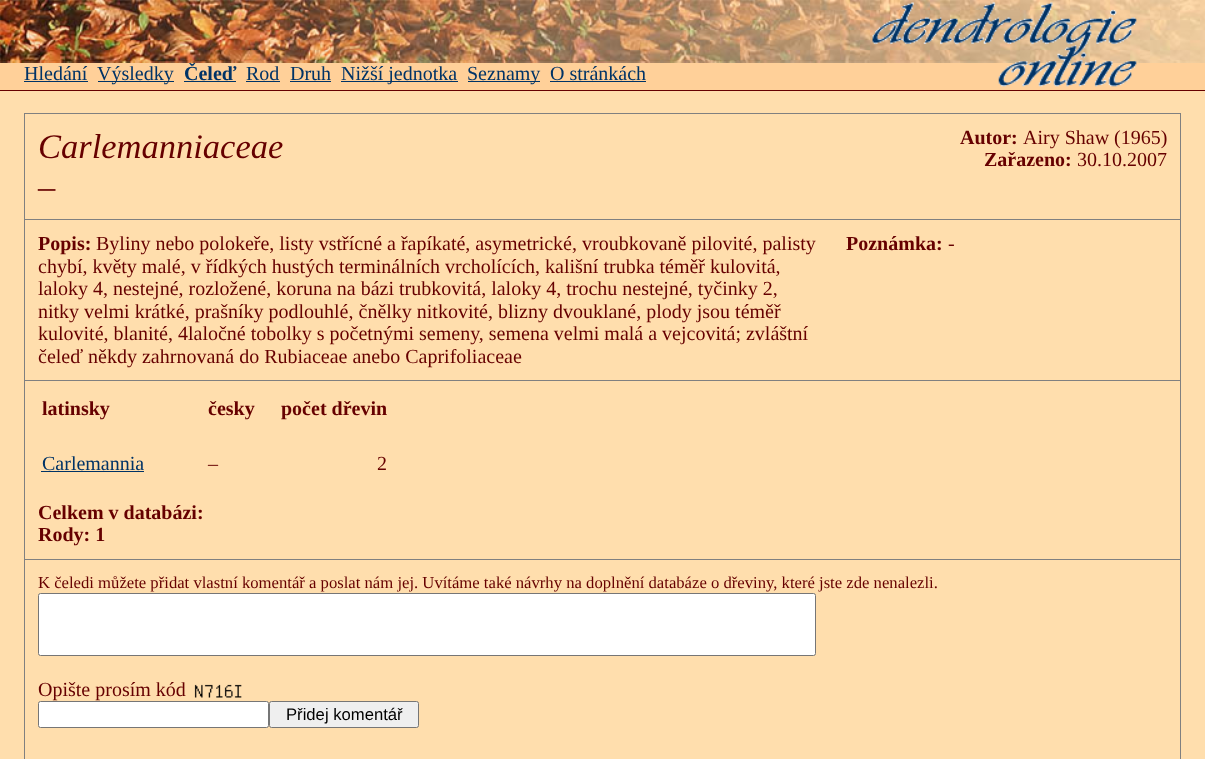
(async () => {
const canvas = document.querySelector("canvas")
canvas.width = 1205
canvas.height = 759
const c = canvas.getContext("2d")
c.miterLimit = 4
c.fontKerning = "normal"
function T(s,x,y){c.fillText(s,x,y)}
function R(x,y,w,h){c.fillRect(x,y,w,h)}
async function I(src,x,y,w,h){const img=new Image();img.src=src;await img.decode();c.drawImage(img,x,y,w,h)}
c.fillStyle="#ffdead"
R(0,0,1205,759)
c.fillStyle="#ffd099"
R(0,63,1205,27)
c.font="bold 20px Liberation Serif"
c.fillStyle="#036"
T("Čeleď",184,80)
await I("1.png",0,0,1205,63)
await I("2.png",872,2,265,85)
c.fillStyle="#600"
R(0,90,1205,1)
c.font="20px Liberation Serif"
c.fillStyle="#036"
T("Hledání",24,80)
R(24,81,64,1)
R(98,81,76,1)
T("Výsledky",97,80)
R(184,81,52,1)
T("Rod",246,80)
R(246,81,34,1)
T("Druh",290,80)
R(290,81,41,1)
R(341,81,117,1)
T("Nižší jednotka",341,80)
R(468,81,72,1)
T("Seznamy",467,80)
T("O stránkách",550,80)
R(550,81,96,1)
c.fillStyle="#808080"
R(24,113,1157,1)
R(1180,113,1,646)
R(24,113,1,646)
c.font="italic 34.5px Liberation Serif"
c.fillStyle="#600"
T("Carlemanniaceae",38,158)
c.font="34.5px Liberation Serif"
T("–",38,198)
c.font="bold 20px Liberation Serif"
T("Autor:",960,144)
c.font="20px Liberation Serif"
T("Airy Shaw (1965)",1023,144)
c.font="bold 20px Liberation Serif"
T("Zařazeno:",984,166)
c.font="20px Liberation Serif"
T("30.10.2007",1077,166)
c.font="bold 20px Liberation Serif"
T("Popis:",38,250)
c.font="20px Liberation Serif"
T("Byliny nebo polokeře, listy vstřícné a řapíkaté, asymetrické, vroubkovaně pilovité, palisty",96,250)
T("chybí, květy malé, v řídkých hustých terminálních vrcholících, kališní trubka téměř kulovitá,",38,273)
T("laloky 4, nestejné, rozložené, koruna na bázi trubkovitá, laloky 4, trochu nestejné, tyčinky 2,",38,295)
T("nitky velmi krátké, prašníky podlouhlé, čnělky nitkovité, blizny dvouklané, plody jsou téměř",38,318)
T("kulovité, blanité, 4laločné tobolky s početnými semeny, semena velmi malá a vejcovitá; zvláštní",38,340)
T("čeleď někdy zahrnovaná do Rubiaceae anebo Caprifoliaceae",38,363)
c.fillStyle="#808080"
R(24,219,1157,1)
c.font="bold 20px Liberation Serif"
c.fillStyle="#600"
T("Poznámka:",846,250)
c.font="20px Liberation Serif"
T("-",948,250)
c.fillStyle="#808080"
R(24,380,1157,1)
c.font="bold 20px Liberation Serif"
c.fillStyle="#600"
T("latinsky",42,415)
T("česky",208,415)
T("počet dřevin",281,415)
c.font="20px Liberation Serif"
c.fillStyle="#036"
T("Carlemannia",42,470)
R(41,471,103,1)
c.fillStyle="#600"
T("–",208,470)
T("2",377,470)
c.font="bold 20px Liberation Serif"
T("Celkem v databázi:",38,519)
T("Rody: 1",38,541)
c.fillStyle="#808080"
R(24,559,1157,1)
c.font="16.67px Liberation Serif"
c.fillStyle="#600"
T("K čeledi můžete přidat vlastní komentář a poslat nám jej. Uvítáme také návrhy na doplnění databáze o dřeviny, které jste zde nenalezli.",38,588)
c.fillStyle="#fff"
c.beginPath()
c.roundRect(38.5,593.5,777,62,2)
c.fill()
c.strokeStyle="#767676"
c.stroke()
c.font="20px Liberation Serif"
c.fillStyle="#600"
T("Opište prosím kód",38,696)
await I("3.png",194,681,62,19)
c.fillStyle="#fff"
c.beginPath()
c.roundRect(38.5,701.5,230,26,2)
c.fill()
c.stroke()
c.fillStyle="#efefef"
c.beginPath()
c.roundRect(269.5,701.5,149,26,2)
c.fill()
c.stroke()
c.font="16.67px Liberation Sans"
c.fillStyle="#000"
T("Přidej komentář",286,720)
})()
